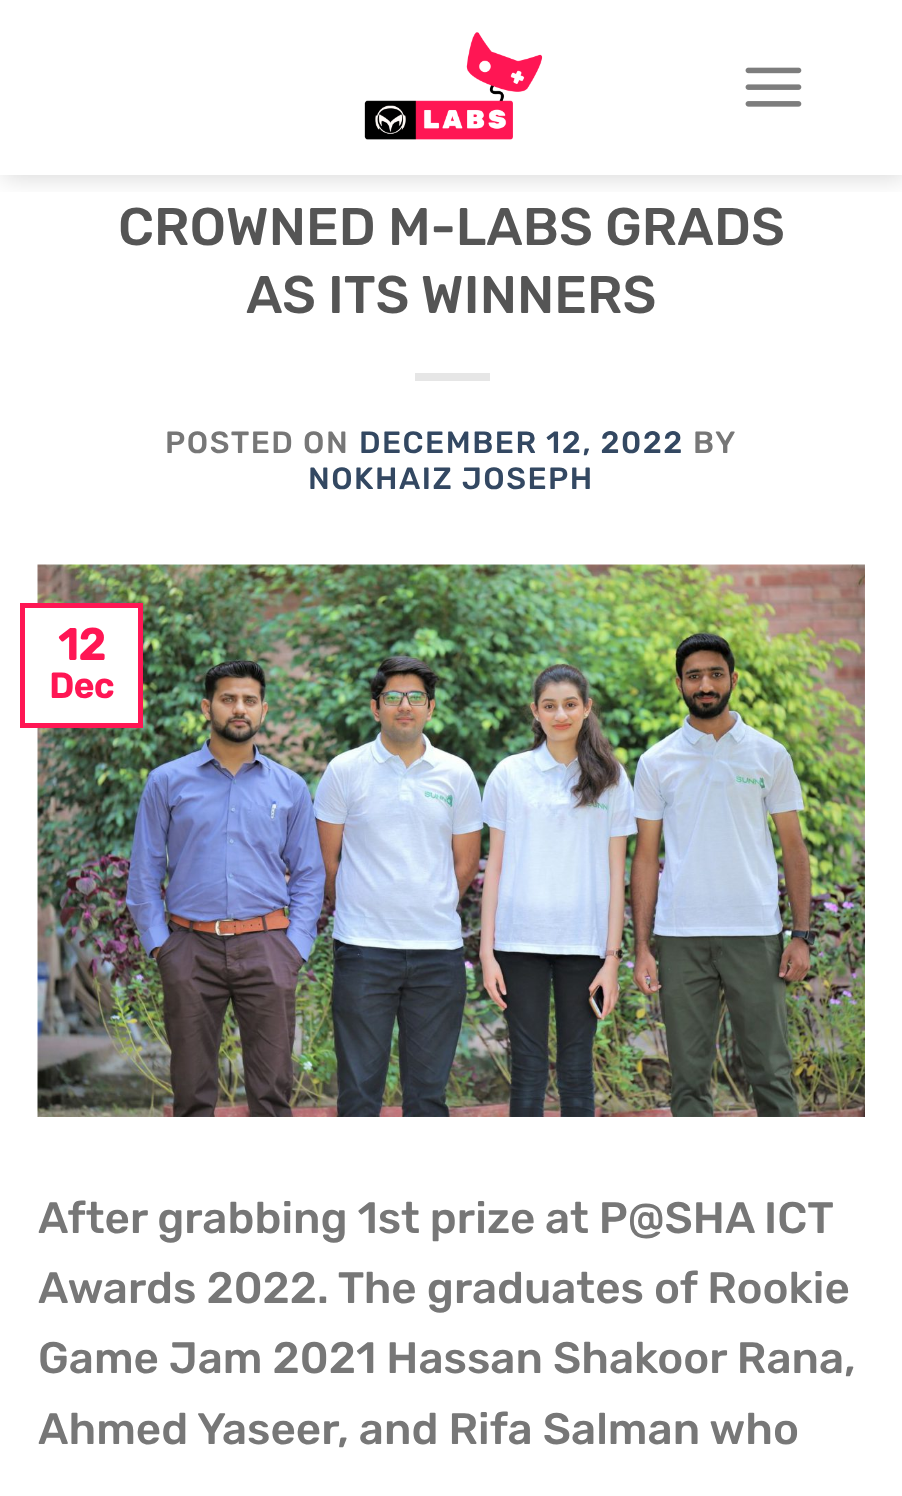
(async () => {
const canvas = document.querySelector("canvas")
canvas.width = 902
canvas.height = 1496
const c = canvas.getContext("2d")
c.miterLimit = 4
c.fontKerning = "normal"
function T(s,x,y){c.fillText(s,x,y)}
function R(x,y,w,h){c.fillRect(x,y,w,h)}
async function I(src,x,y,w,h){const img=new Image();img.src=src;await img.decode();c.drawImage(img,x,y,w,h)}
c.fillStyle="#fff"
R(0,0,902,1496)
c.save()
c.beginPath()
c.rect(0,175,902,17)
c.clip()
c.fillStyle="#00000026"
c.filter="blur(12.5px)"
c.beginPath()
c.rect(3,3,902,175)
c.fill()
c.filter="none"
c.restore()
await I("1.png",364,32,179,108)
await I("2.png",745,67,57,40)
c.font="500 52.75px Rubik"
c.fillStyle="#555"
T("CROWNED M-LABS GRADS",118,245)
T("AS ITS WINNERS",246,313)
c.fillStyle="#e6e6e6"
R(415,373,75,8)
c.letterSpacing="1.5px"
c.font="500 30.75px Rubik"
c.fillStyle="#777"
T("POSTED ON",165,453)
c.fillStyle="#334862"
T("DECEMBER 12, 2022",359,453)
c.fillStyle="#777"
T("BY",693,453)
c.fillStyle="#334862"
T("NOKHAIZ JOSEPH",308,489)
await I("3.png",37,564,828,553)
c.fillStyle="#fff"
R(37,608,101,115)
c.strokeStyle="#ff1654"
c.lineWidth=5
c.strokeRect(22.5,605.5,118,120)
c.letterSpacing="0px"
c.font="bold 44px Rubik"
c.fillStyle="#ff1654"
T("12",58,660)
c.font="bold 35px Rubik"
T("Dec",49,698)
c.wordSpacing="-0.25px"
c.font="500 44px Rubik"
c.fillStyle="#777"
T("After grabbing 1st prize at P@SHA ICT",38,1233)
c.wordSpacing="0px"
T("Awards 2022. The graduates of Rookie",38,1303)
T("Game Jam 2021 Hassan Shakoor Rana,",38,1373)
T("Ahmed Yaseer, and Rifa Salman who",38,1444)
})()
